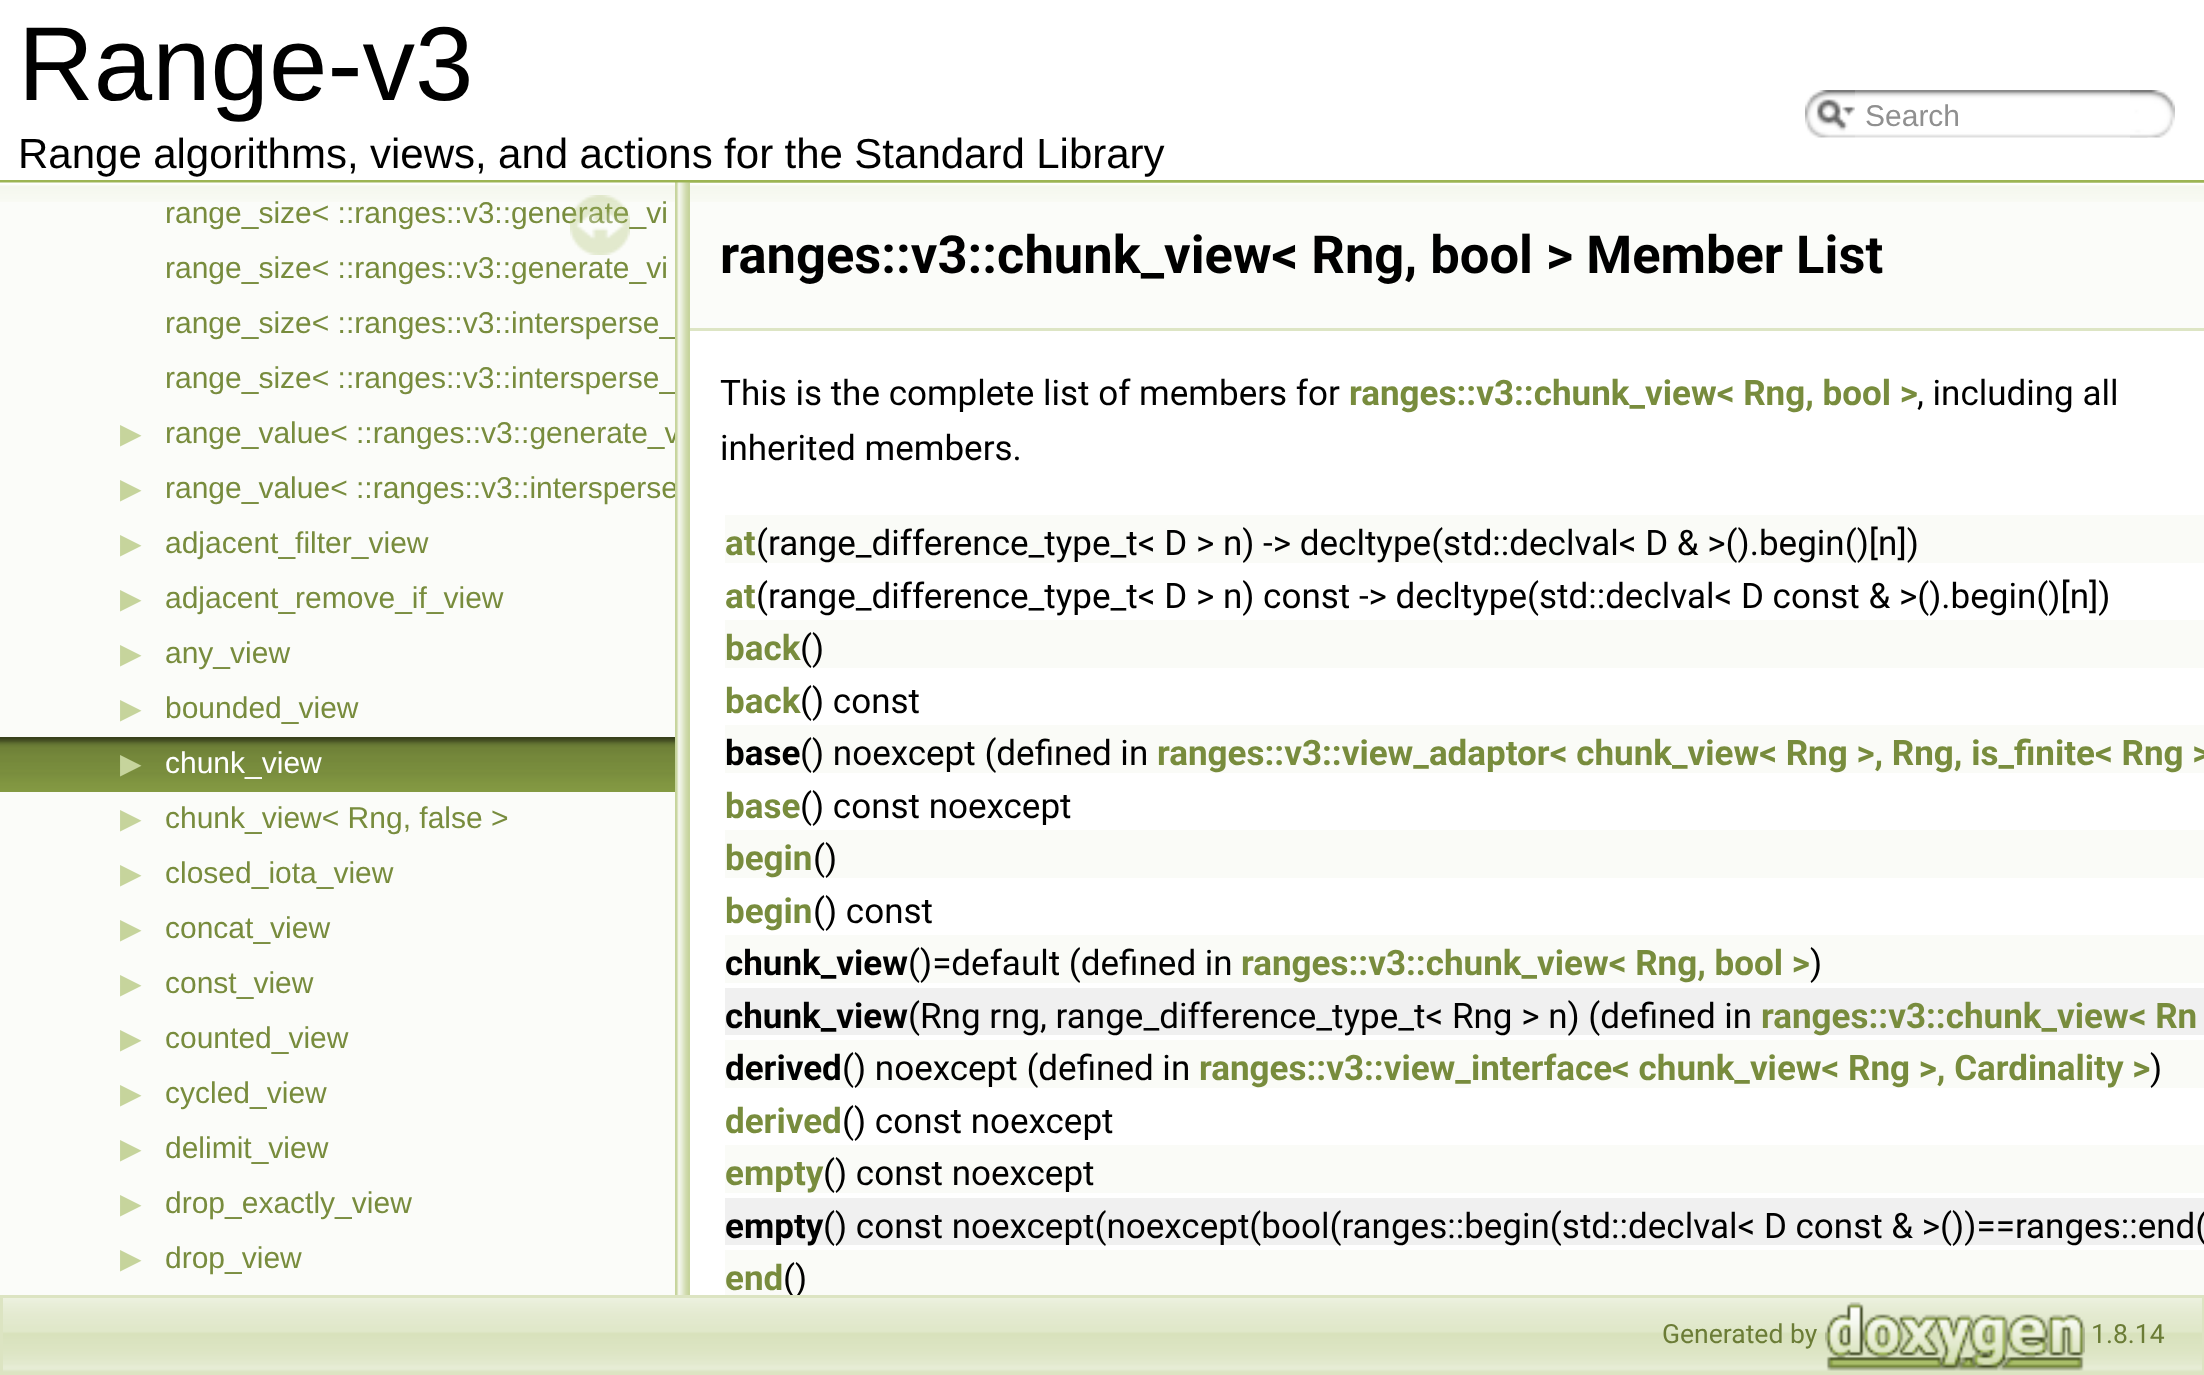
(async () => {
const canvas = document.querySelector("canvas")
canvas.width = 2204
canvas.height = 1375
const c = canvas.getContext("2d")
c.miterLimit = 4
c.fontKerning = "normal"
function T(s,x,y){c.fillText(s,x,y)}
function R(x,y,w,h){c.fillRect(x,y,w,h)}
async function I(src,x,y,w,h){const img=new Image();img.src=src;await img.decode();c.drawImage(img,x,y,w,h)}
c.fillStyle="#fff"
R(0,0,2204,1375)
c.fillStyle="#9cb453"
R(0,180,2204,3)
c.font="105px Liberation Sans"
c.fillStyle="#000"
T("Range-v3",18,100)
c.wordSpacing="-0.25px"
c.font="42px Liberation Sans"
T("Range algorithms, views, and actions for the Standard Library",18,168)
await I("1.png",1805,90,50,48)
await I("2.png",1816,99,39,32)
await I("3.png",1855,90,293,48)
c.wordSpacing="0px"
c.font="30px Liberation Sans"
c.fillStyle="#909090"
T("Search",1865,126)
await I("4.png",2130,90,45,48)
c.fillStyle="#fbfcf9"
R(0,202,675,1093)
await I("5.png",0,182,675,20)
c.fillStyle="#788c3d"
T("range_size< ::ranges::v3::generate_vi",165,223)
await I("6.png",570,195,60,60)
T("range_size< ::ranges::v3::generate_vi",165,278)
T("range_size< ::ranges::v3::intersperse_",165,333)
T("range_size< ::ranges::v3::intersperse_",165,388)
c.font="28px DejaVu Sans"
c.fillStyle="#c6d49c"
T("▶",120,443)
c.font="30px Liberation Sans"
c.fillStyle="#788c3d"
T("range_value< ::ranges::v3::generate_v",165,443)
c.font="28px DejaVu Sans"
c.fillStyle="#c6d49c"
T("▶",120,498)
c.font="30px Liberation Sans"
c.fillStyle="#788c3d"
T("range_value< ::ranges::v3::intersperse",165,498)
c.font="28px DejaVu Sans"
c.fillStyle="#c6d49c"
T("▶",120,553)
c.font="30px Liberation Sans"
c.fillStyle="#788c3d"
T("adjacent_filter_view",165,553)
c.font="28px DejaVu Sans"
c.fillStyle="#c6d49c"
T("▶",120,608)
c.font="30px Liberation Sans"
c.fillStyle="#788c3d"
T("adjacent_remove_if_view",165,608)
c.font="28px DejaVu Sans"
c.fillStyle="#c6d49c"
T("▶",120,663)
c.font="30px Liberation Sans"
c.fillStyle="#788c3d"
T("any_view",165,663)
c.font="28px DejaVu Sans"
c.fillStyle="#c6d49c"
T("▶",120,718)
c.font="30px Liberation Sans"
c.fillStyle="#788c3d"
T("bounded_view",165,718)
await I("7.png",0,737,675,55)
c.font="28px DejaVu Sans"
c.fillStyle="#c6d49c"
T("▶",120,773)
c.font="30px Liberation Sans"
c.fillStyle="#fff"
T("chunk_view",165,773)
c.font="28px DejaVu Sans"
c.fillStyle="#c6d49c"
T("▶",120,828)
c.font="30px Liberation Sans"
c.fillStyle="#788c3d"
T("chunk_view< Rng, false >",165,828)
c.font="28px DejaVu Sans"
c.fillStyle="#c6d49c"
T("▶",120,883)
c.font="30px Liberation Sans"
c.fillStyle="#788c3d"
T("closed_iota_view",165,883)
c.font="28px DejaVu Sans"
c.fillStyle="#c6d49c"
T("▶",120,938)
c.font="30px Liberation Sans"
c.fillStyle="#788c3d"
T("concat_view",165,938)
c.font="28px DejaVu Sans"
c.fillStyle="#c6d49c"
T("▶",120,993)
c.font="30px Liberation Sans"
c.fillStyle="#788c3d"
T("const_view",165,993)
c.font="28px DejaVu Sans"
c.fillStyle="#c6d49c"
T("▶",120,1048)
c.font="30px Liberation Sans"
c.fillStyle="#788c3d"
T("counted_view",165,1048)
c.font="28px DejaVu Sans"
c.fillStyle="#c6d49c"
T("▶",120,1103)
c.font="30px Liberation Sans"
c.fillStyle="#788c3d"
T("cycled_view",165,1103)
c.font="28px DejaVu Sans"
c.fillStyle="#c6d49c"
T("▶",120,1158)
c.font="30px Liberation Sans"
c.fillStyle="#788c3d"
T("delimit_view",165,1158)
c.font="28px DejaVu Sans"
c.fillStyle="#c6d49c"
T("▶",120,1213)
c.font="30px Liberation Sans"
c.fillStyle="#788c3d"
T("drop_exactly_view",165,1213)
c.font="28px DejaVu Sans"
c.fillStyle="#c6d49c"
T("▶",120,1268)
c.font="30px Liberation Sans"
c.fillStyle="#788c3d"
T("drop_view",165,1268)
await I("8.png",675,182,15,1113)
c.fillStyle="#fbfcf9"
R(690,202,1514,126)
await I("9.png",690,182,1514,20)
c.fillStyle="#dde5c4"
R(690,328,1514,3)
c.font="bold 52.5px Roboto"
c.fillStyle="#000"
T("ranges::v3::chunk_view< Rng, bool > Member List",720,273)
c.font="35px Roboto"
T("This is the complete list of members for",720,405)
c.font="bold 35px Roboto"
c.fillStyle="#788c3d"
T("ranges::v3::chunk_view< Rng, bool >",1349,405)
c.font="35px Roboto"
c.fillStyle="#000"
T(", including all",1917,405)
T("inherited members.",720,460)
c.fillStyle="#fafbf7"
R(725,515,1479,48)
c.font="bold 35px Roboto"
c.fillStyle="#788c3d"
T("at",725,555)
c.font="35px Roboto"
c.fillStyle="#000"
T("(range_difference_type_t< D > n) -> decltype(std::declval< D & >().begin()[n])",756,555)
c.font="bold 35px Roboto"
c.fillStyle="#788c3d"
T("at",725,608)
c.font="35px Roboto"
c.fillStyle="#000"
T("(range_difference_type_t< D > n) const -> decltype(std::declval< D const & >().begin()[n])",756,608)
c.fillStyle="#fafbf7"
R(725,620,1479,48)
c.font="bold 35px Roboto"
c.fillStyle="#788c3d"
T("back",725,660)
c.font="35px Roboto"
c.fillStyle="#000"
T("()",800,660)
c.font="bold 35px Roboto"
c.fillStyle="#788c3d"
T("back",725,713)
c.font="35px Roboto"
c.fillStyle="#000"
T("() const",800,713)
c.fillStyle="#fafbf7"
R(725,725,1479,48)
c.font="bold 35px Roboto"
c.fillStyle="#000"
T("base",725,765)
c.font="35px Roboto"
T("() noexcept (defined in",800,765)
c.font="bold 35px Roboto"
c.fillStyle="#788c3d"
T("ranges::v3::view_adaptor< chunk_view< Rng >, Rng, is_finite< Rng >",1157,765)
T("base",725,818)
c.font="35px Roboto"
c.fillStyle="#000"
T("() const noexcept",800,818)
c.fillStyle="#fafbf7"
R(725,830,1479,48)
c.font="bold 35px Roboto"
c.fillStyle="#788c3d"
T("begin",725,870)
c.font="35px Roboto"
c.fillStyle="#000"
T("()",813,870)
c.font="bold 35px Roboto"
c.fillStyle="#788c3d"
T("begin",725,923)
c.font="35px Roboto"
c.fillStyle="#000"
T("() const",813,923)
c.fillStyle="#fafbf7"
R(725,935,1479,48)
c.font="bold 35px Roboto"
c.fillStyle="#000"
T("chunk_view",725,975)
c.font="35px Roboto"
T("()=default (defined in",908,975)
c.font="bold 35px Roboto"
c.fillStyle="#788c3d"
T("ranges::v3::chunk_view< Rng, bool >",1241,975)
c.font="35px Roboto"
c.fillStyle="#000"
T(")",1810,975)
c.fillStyle="#f0f0f0"
R(725,988,1479,47)
c.font="bold 35px Roboto"
c.fillStyle="#000"
T("chunk_view",725,1028)
c.font="35px Roboto"
T("(Rng rng, range_difference_type_t< Rng > n) (defined in",908,1028)
c.font="bold 35px Roboto"
c.fillStyle="#788c3d"
T("ranges::v3::chunk_view< Rn",1761,1028)
c.fillStyle="#fafbf7"
R(725,1040,1479,48)
c.fillStyle="#000"
T("derived",725,1080)
c.font="35px Roboto"
T("() noexcept (defined in",842,1080)
c.font="bold 35px Roboto"
c.fillStyle="#788c3d"
T("ranges::v3::view_interface< chunk_view< Rng >, Cardinality >",1199,1080)
c.font="35px Roboto"
c.fillStyle="#000"
T(")",2150,1080)
c.font="bold 35px Roboto"
c.fillStyle="#788c3d"
T("derived",725,1133)
c.font="35px Roboto"
c.fillStyle="#000"
T("() const noexcept",842,1133)
c.fillStyle="#fafbf7"
R(725,1145,1479,48)
c.font="bold 35px Roboto"
c.fillStyle="#788c3d"
T("empty",725,1185)
c.font="35px Roboto"
c.fillStyle="#000"
T("() const noexcept",823,1185)
c.fillStyle="#f0f0f0"
R(725,1198,1479,47)
c.font="bold 35px Roboto"
c.fillStyle="#000"
T("empty",725,1238)
c.font="35px Roboto"
T("() const noexcept(noexcept(bool(ranges::begin(std::declval< D const & >())==ranges::end(",823,1238)
c.fillStyle="#fafbf7"
R(725,1250,1479,45)
c.font="bold 35px Roboto"
c.fillStyle="#788c3d"
T("end",725,1290)
c.font="35px Roboto"
c.fillStyle="#000"
T("()",783,1290)
await I("10.png",3,1298,2199,74)
c.strokeStyle="#dce4c2"
c.lineWidth=3
c.strokeRect(1.5,1296.5,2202,77)
c.font="26.5px Roboto"
c.fillStyle="#6b7c36"
T("Generated by",1662,1343)
await I("11.png",1825,1302,260,69)
T("1.8.14",2091,1343)
})()
